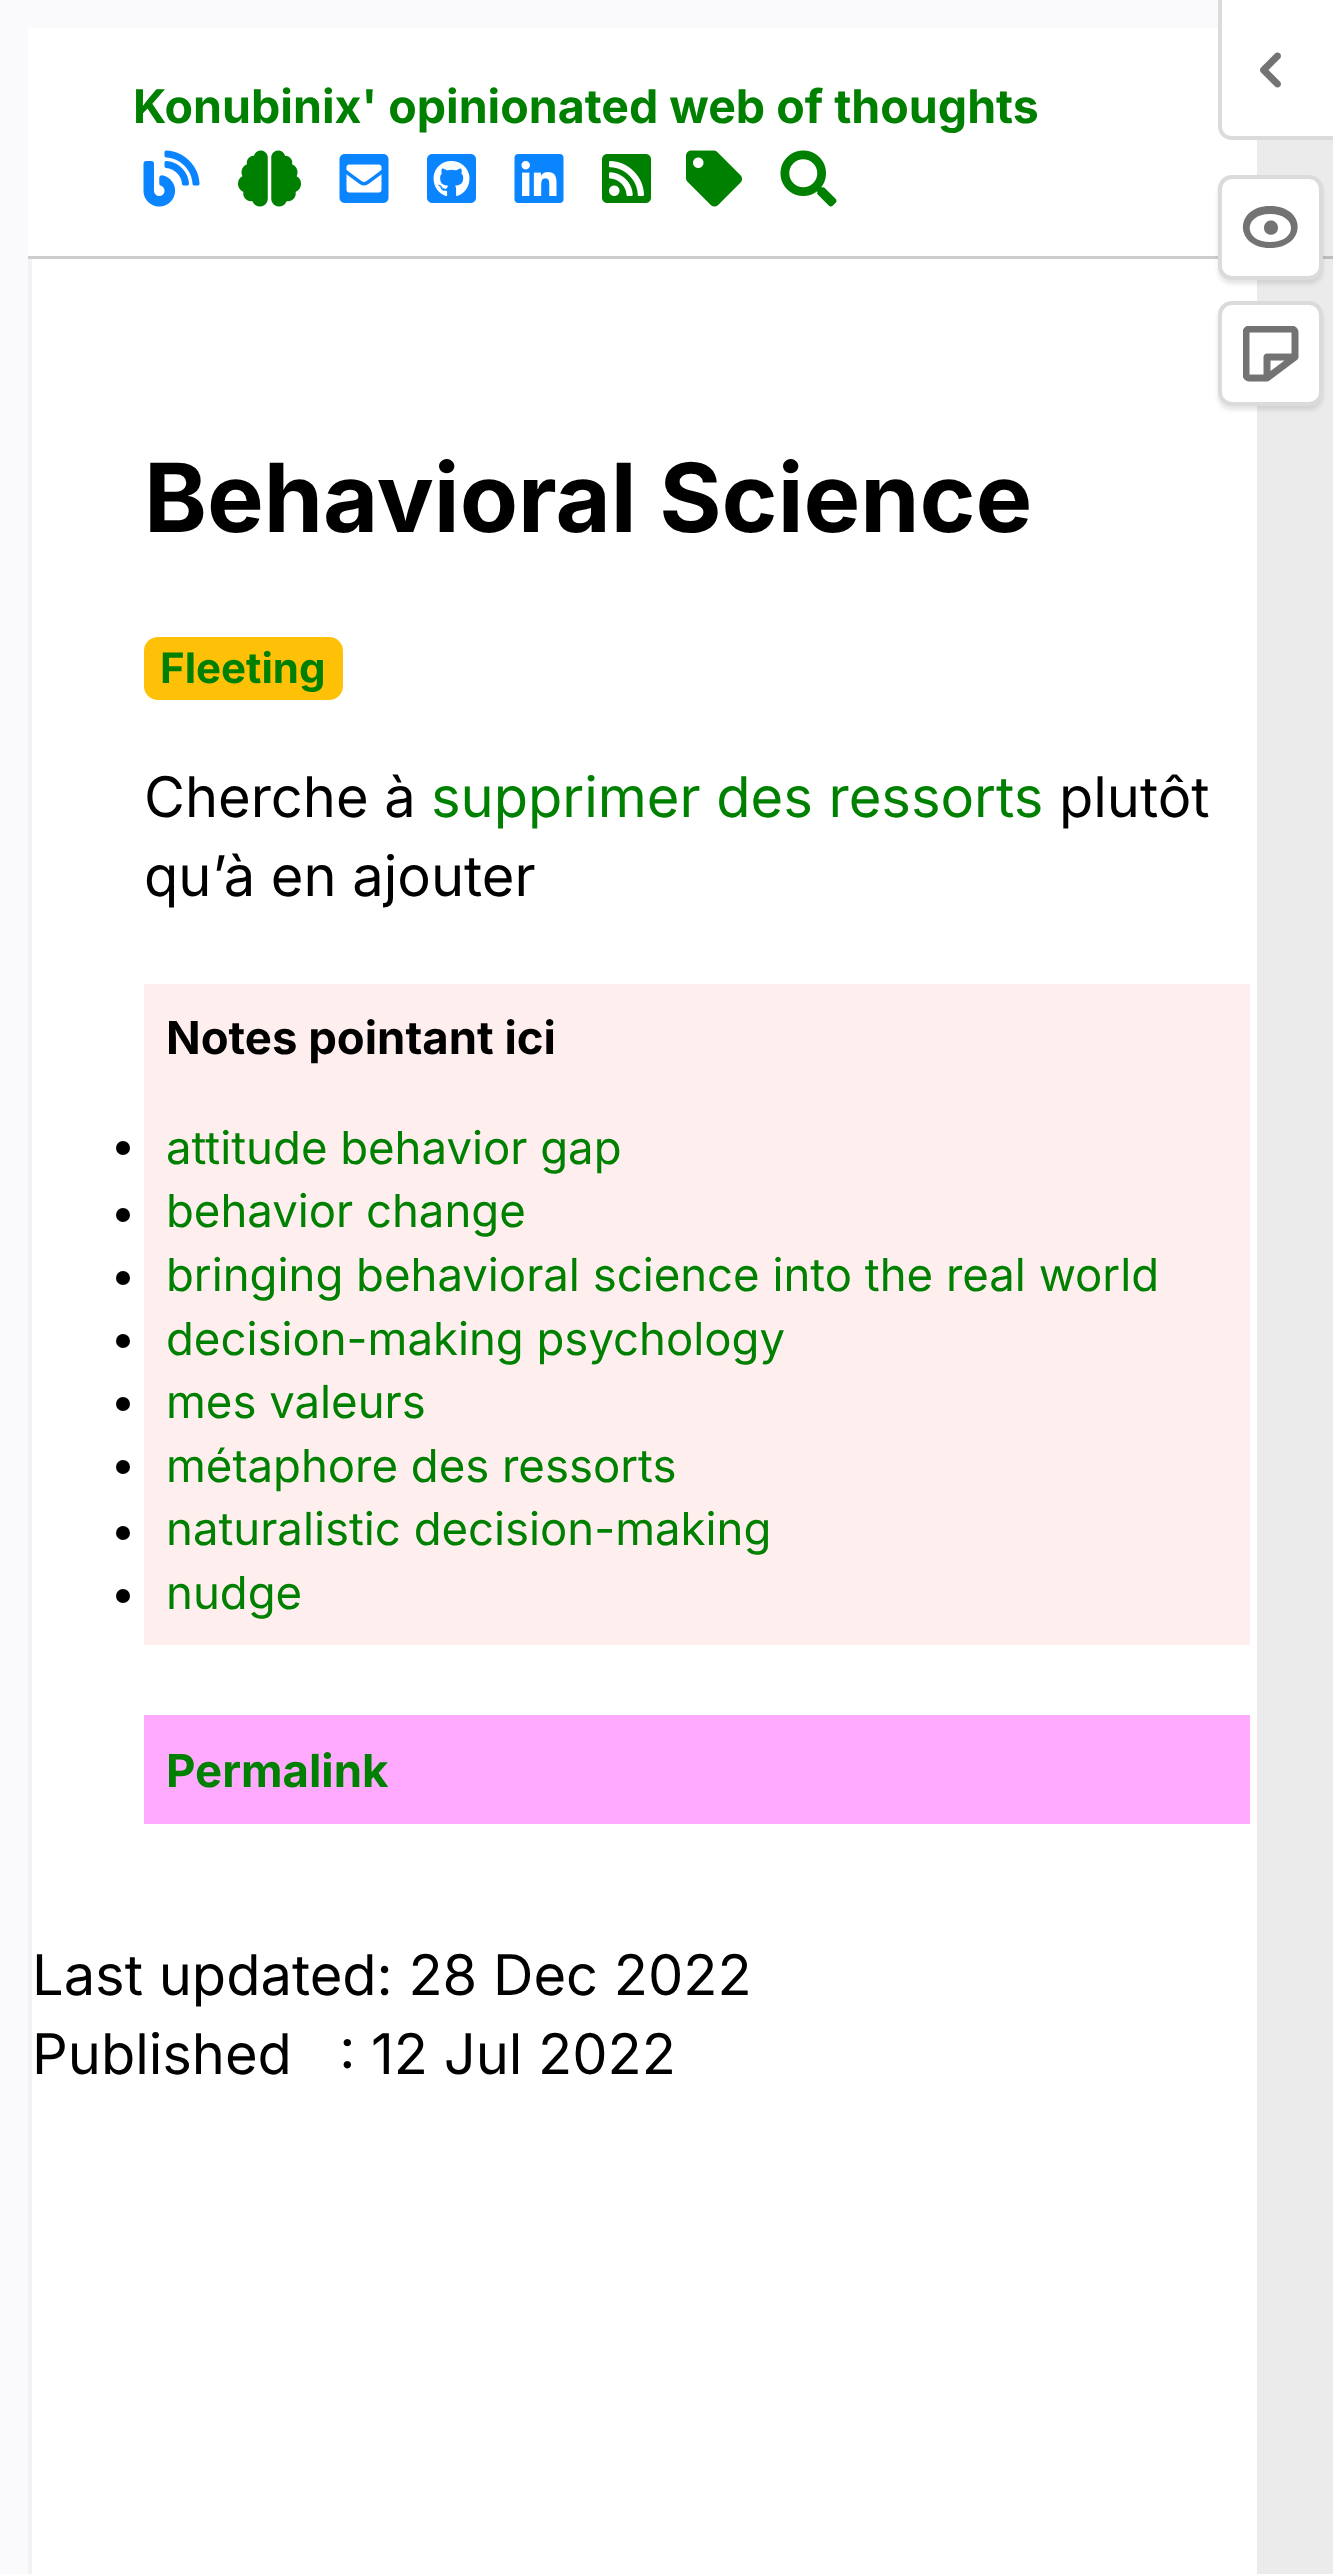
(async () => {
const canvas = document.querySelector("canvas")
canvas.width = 1333
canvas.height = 2574
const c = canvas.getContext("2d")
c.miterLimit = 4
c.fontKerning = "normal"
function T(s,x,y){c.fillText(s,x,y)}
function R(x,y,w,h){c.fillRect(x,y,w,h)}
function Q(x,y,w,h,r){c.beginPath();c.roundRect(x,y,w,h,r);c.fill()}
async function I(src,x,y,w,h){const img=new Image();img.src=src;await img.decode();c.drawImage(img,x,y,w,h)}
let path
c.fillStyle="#fafafc"
R(0,0,1333,2574)
c.fillStyle="#fff"
R(28,28,1229,228)
c.fillStyle="#ebebeb"
R(1257,140,76,116)
c.fillStyle="#ccc"
R(28,256,1190,3)
c.fillStyle="#bcbcbc"
R(1323,256,10,3)
c.font="bold 46.5px Inter"
c.fillStyle="#008000"
T("Konubinix' opinionated web of thoughts",133,123)
await I("1.png",143,150,57,57)
await I("2.png",238,150,63,57)
await I("3.png",339,154,50,49)
await I("4.png",427,154,49,49)
await I("5.png",514,154,50,49)
await I("6.png",602,154,49,49)
await I("7.png",686,150,56,57)
await I("8.png",780,150,57,57)
c.fillStyle="#fff"
path = new Path2D("M1222 0h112v137h-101c-6 0-11-5-11-11z")
c.fill(path)
c.fillStyle="#dbdbdb"
path = new Path2D("M1218 0h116v140h-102c-8 0-14-6-14-14zm4 0h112v136h-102c-6 0-10-4-10-10z")
c.fill(path,"evenodd")
await I("9.png",1260,52,21,36)
c.fillStyle="#fff"
R(32,259,1225,2315)
c.fillStyle="#ebebeb"
R(1257,259,76,2315)
c.fillStyle="#0000001a"
c.filter="blur(2px)"
c.beginPath()
c.roundRect(1218,179,105,105,14)
c.fill()
c.filter="none"
c.fillStyle="#fff"
c.beginPath()
c.roundRect(1220,177,101,101,12)
c.fill()
c.strokeStyle="#dbdbdb"
c.lineWidth=4
c.stroke()
c.fillStyle="#737373"
path = new Path2D("M1270 206c37 0 37 42 0 42c-36 0-36-42 0-42m0 8c-27 0-27 28 0 28c28 0 28-28 0-28m8 14c0-10-14-10-14 0c0 9 14 9 14 0")
c.fill(path,"evenodd")
c.fillStyle="#0000001a"
c.filter="blur(2px)"
c.beginPath()
c.roundRect(1218,305,105,105,14)
c.fill()
c.filter="none"
c.fillStyle="#fff"
c.beginPath()
c.roundRect(1220,303,101,101,12)
c.fill()
c.stroke()
await I("10.png",1243,326,56,56)
c.fillStyle="#f2f2f2"
R(28,259,4,2315)
c.font="bold 95.25px Inter"
c.fillStyle="#000"
T("Behavioral Science",144,532)
c.fillStyle="#ffc107"
Q(144,637,199,63,14)
c.font="bold 42px Inter"
c.fillStyle="#008000"
T("Fleeting",160,683)
c.font="56px Inter"
c.fillStyle="#000"
T("Cherche à",144,817)
c.fillStyle="#008000"
T("supprimer des ressorts",431,817)
c.fillStyle="#000"
T("plutôt",1059,817)
T("qu’à en ajouter",144,896)
c.fillStyle="#fee"
R(144,984,1106,661)
c.font="bold 45.5px Inter"
c.fillStyle="#000"
T("Notes pointant ici",166,1054)
c.beginPath()
c.arc(123,1148,7,0,7)
c.fill()
c.font="45.5px Inter"
c.fillStyle="#008000"
T("attitude behavior gap",166,1164)
c.fillStyle="#000"
c.beginPath()
c.arc(123,1215,7,0,7)
c.fill()
c.fillStyle="#008000"
T("behavior change",166,1227)
c.fillStyle="#000"
c.beginPath()
c.arc(123,1278,7,0,7)
c.fill()
c.fillStyle="#008000"
T("bringing behavioral science into the real world",166,1291)
c.fillStyle="#000"
c.beginPath()
c.arc(123,1341,7,0,7)
c.fill()
c.fillStyle="#008000"
T("decision-making psychology",166,1355)
c.fillStyle="#000"
c.beginPath()
c.arc(123,1404,7,0,7)
c.fill()
c.fillStyle="#008000"
T("mes valeurs",166,1418)
c.fillStyle="#000"
c.beginPath()
c.arc(123,1467,7,0,7)
c.fill()
c.fillStyle="#008000"
T("métaphore des ressorts",166,1482)
c.fillStyle="#000"
c.beginPath()
c.arc(123,1533,7,0,7)
c.fill()
c.fillStyle="#008000"
T("naturalistic decision-making",166,1545)
c.fillStyle="#000"
c.beginPath()
c.arc(123,1596,7,0,7)
c.fill()
c.fillStyle="#008000"
T("nudge",166,1609)
c.fillStyle="#faf"
R(144,1715,1106,109)
c.font="bold 45.5px Inter"
c.fillStyle="#008000"
T("Permalink",166,1787)
c.font="56px Inter"
c.fillStyle="#000"
T("Last updated: 28 Dec 2022",32,1995)
T("Published   : 12 Jul 2022",32,2074)
})()
